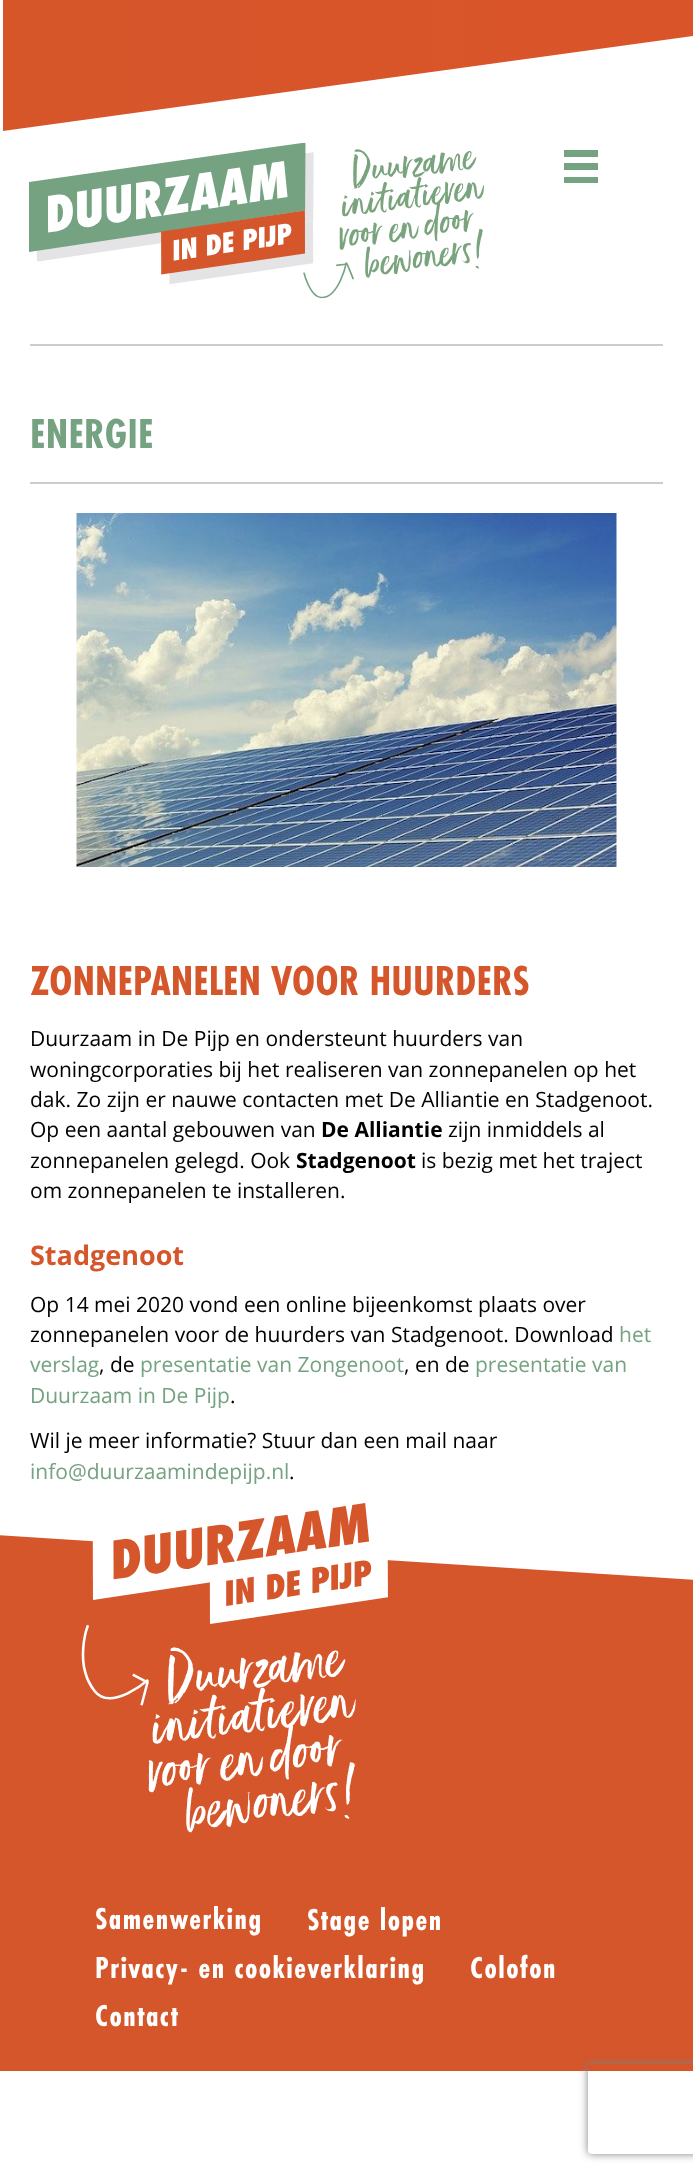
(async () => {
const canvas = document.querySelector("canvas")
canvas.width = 693
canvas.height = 2175
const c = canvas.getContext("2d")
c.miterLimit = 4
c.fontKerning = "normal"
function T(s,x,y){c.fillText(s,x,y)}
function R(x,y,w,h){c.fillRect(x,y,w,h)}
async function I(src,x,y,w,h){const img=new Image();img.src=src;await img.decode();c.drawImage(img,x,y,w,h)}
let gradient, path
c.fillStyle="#fff"
R(0,0,693,2175)
gradient = c.createLinearGradient(-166,68,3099,68)
gradient.addColorStop(0,"#d5562a")
gradient.addColorStop(.01,"#d5562a")
gradient.addColorStop(1,"#e94e29")
c.fillStyle = gradient
path = new Path2D("M3 0v131l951-131z")
c.fill(path)
await I("1.png",29,143,455,156)
c.fillStyle="#75a281"
R(564,150,34,7)
R(564,163,34,7)
R(564,177,34,6)
c.fillStyle="#ccc"
R(30,344,633,2)
c.letterSpacing="0.25px"
c.font="bold 43.5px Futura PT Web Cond"
c.fillStyle="#75a281"
T("ENERGIE",30,448)
c.fillStyle="#ccc"
R(30,482,633,2)
await I("2.png",76,513,541,354)
c.letterSpacing="0px"
c.fillStyle="#d5562a"
T("ZONNEPANELEN VOOR HUURDERS",30,995)
c.font="21px Open Sans"
c.fillStyle="#000"
T("Duurzaam in De Pijp en ondersteunt huurders van",30,1046)
T("woningcorporaties bij het realiseren van zonnepanelen op het",30,1077)
T("dak. Zo zijn er nauwe contacten met De Alliantie en Stadgenoot.",30,1107)
T("Op een aantal gebouwen van",30,1137)
c.font="bold 21px Open Sans"
T("De Alliantie",321,1137)
c.font="21px Open Sans"
T("zijn inmiddels al",448,1137)
T("zonnepanelen gelegd. Ook",30,1168)
c.font="bold 21px Open Sans"
T("Stadgenoot",296,1168)
c.font="21px Open Sans"
T("is bezig met het traject",421,1168)
T("om zonnepanelen te installeren.",30,1198)
c.font="bold 27px Open Sans"
c.fillStyle="#d5562a"
T("Stadgenoot",30,1265)
c.font="21px Open Sans"
c.fillStyle="#000"
T("Op 14 mei 2020 vond een online bijeenkomst plaats over",30,1312)
T("zonnepanelen voor de huurders van Stadgenoot. Download",30,1342)
c.fillStyle="#75a281"
T("het",619,1342)
T("verslag",30,1372)
c.fillStyle="#000"
T(", de",99,1372)
c.fillStyle="#75a281"
T("presentatie van Zongenoot",140,1372)
c.fillStyle="#000"
T(", en de",404,1372)
c.fillStyle="#75a281"
T("presentatie van",475,1372)
T("Duurzaam in De Pijp",30,1403)
c.fillStyle="#000"
T(".",230,1403)
T("Wil je meer informatie? Stuur dan een mail naar",30,1448)
c.fillStyle="#75a281"
T("info@duurzaamindepijp.nl",30,1479)
c.fillStyle="#000"
T(".",289,1479)
c.fillStyle="#d5562a"
path = new Path2D("M-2 2071h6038v-147l-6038-389z")
c.fill(path)
await I("3.png",81,1503,307,330)
c.letterSpacing="1.5px"
c.font="bold 31.5px Futura PT Web Cond"
c.fillStyle="#fff"
T("Samenwerking",95,1929)
T("Stage lopen",307,1930)
T("Privacy- en cookieverklaring",95,1978)
T("Colofon",470,1978)
T("Contact",95,2026)
c.save()
path = new Path2D("M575 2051h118v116h-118zm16 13h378c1.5 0 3 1.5 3 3v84c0 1.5-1.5 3-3 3h-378c-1.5 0-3-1.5-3-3v-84c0-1.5 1.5-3 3-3z")
c.clip(path,"evenodd")
c.fillStyle="#808080"
c.filter="blur(4px)"
c.beginPath()
c.roundRect(588,2064,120,90,3)
c.fill()
c.filter="none"
c.restore()
})()
